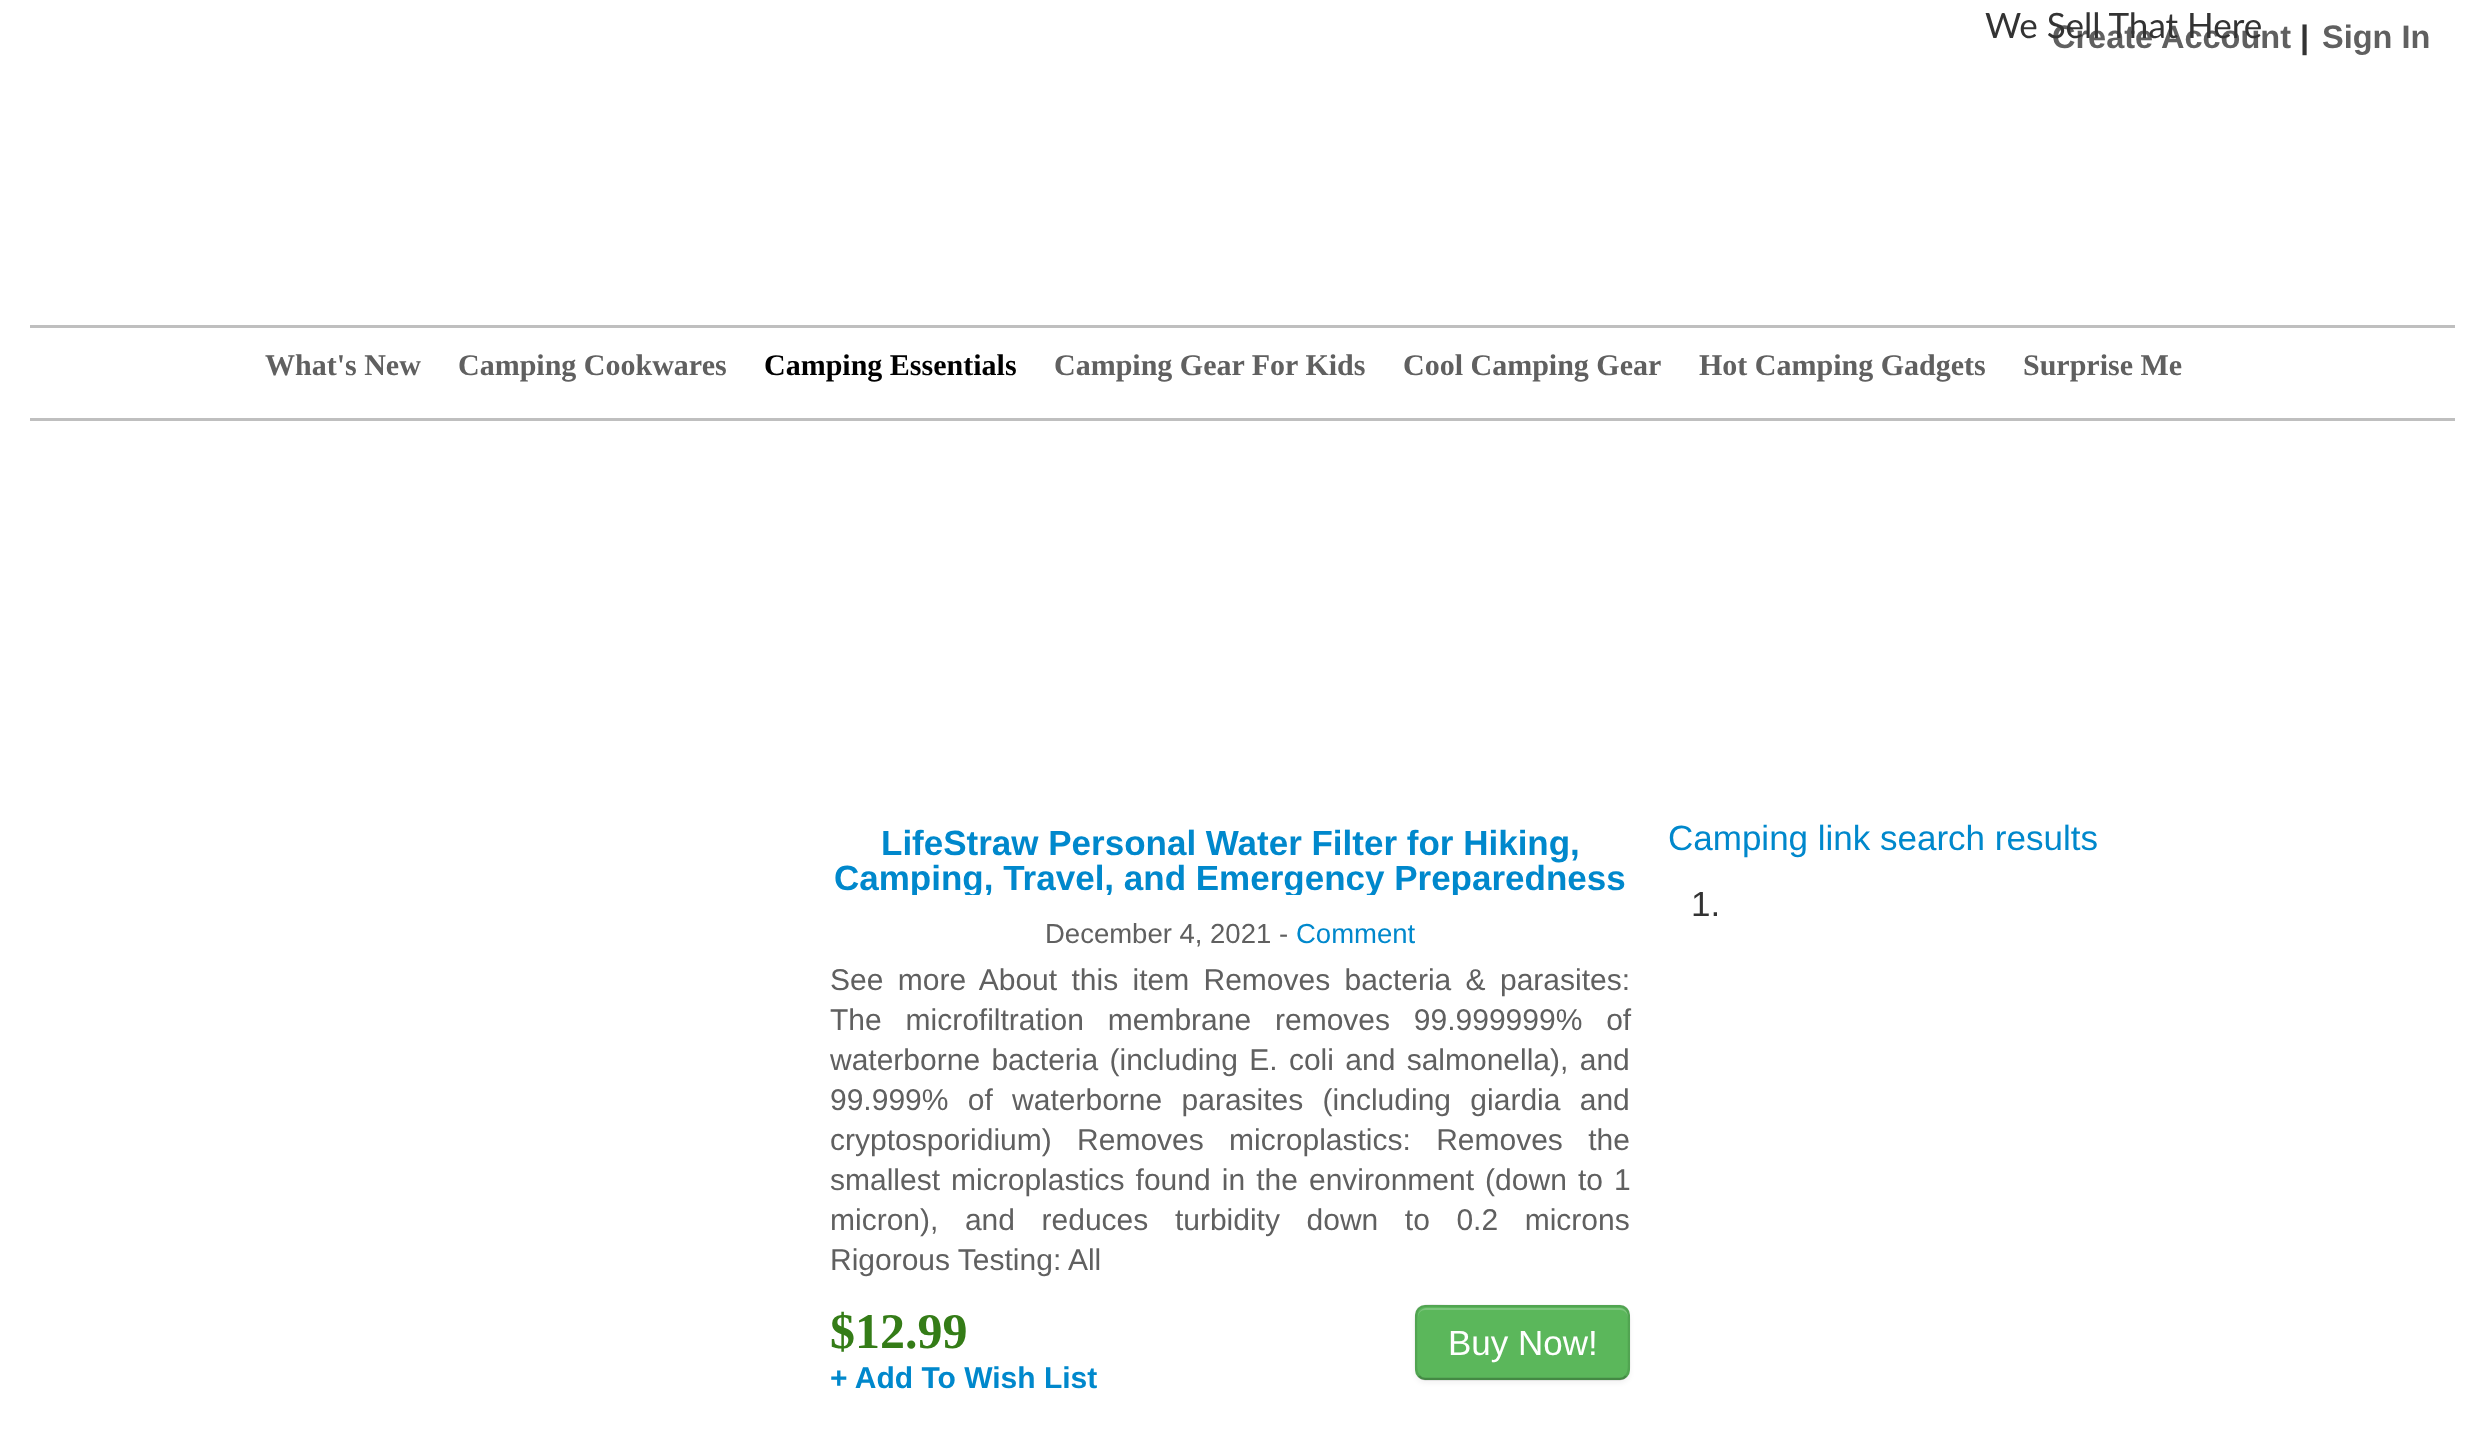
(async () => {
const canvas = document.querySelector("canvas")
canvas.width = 2484
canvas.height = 1448
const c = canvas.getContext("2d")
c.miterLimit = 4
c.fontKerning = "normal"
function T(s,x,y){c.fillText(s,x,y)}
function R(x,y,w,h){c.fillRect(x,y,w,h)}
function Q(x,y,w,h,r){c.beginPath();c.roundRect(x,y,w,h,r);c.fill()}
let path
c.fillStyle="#fff"
R(0,0,2484,1448)
c.font="bold 32.5px Liberation Sans"
c.fillStyle="#606060"
T("Create Account",2052,48)
c.font="35px Lato"
c.fillStyle="#333"
T("We Sell That Here",1985,38)
c.font="bold 32.5px Liberation Sans"
T("|",2300,48)
c.fillStyle="#606060"
T("Sign In",2322,48)
c.fillStyle="#bfbfbf"
R(30,325,2425,3)
R(30,418,2425,3)
c.font="bold 30px Liberation Serif"
c.fillStyle="#606060"
T("What's New",265,375)
T("Camping Cookwares",458,375)
c.fillStyle="#000"
T("Camping Essentials",764,375)
c.fillStyle="#606060"
T("Camping Gear For Kids",1054,375)
T("Cool Camping Gear",1403,375)
T("Hot Camping Gadgets",1699,375)
T("Surprise Me",2023,375)
c.font="bold 35px Liberation Sans"
c.fillStyle="#08c"
T("LifeStraw Personal Water Filter for Hiking,",881,855)
c.save()
c.beginPath()
c.rect(830,825,800,70)
c.clip()
T("Camping, Travel, and Emergency Preparedness",834,890)
c.restore()
c.font="27.5px Liberation Sans"
c.fillStyle="#606060"
T("December 4, 2021 -",1045,943)
c.fillStyle="#08c"
T("Comment",1296,943)
c.wordSpacing="6px"
c.font="30px Liberation Sans"
c.fillStyle="#606060"
T("See more About this item Removes bacteria & parasites:",830,990)
c.wordSpacing="15.5px"
T("The microfiltration membrane removes 99.999999% of",830,1030)
c.wordSpacing="3px"
T("waterborne bacteria (including E. coli and salmonella), and",830,1070)
c.wordSpacing="11px"
T("99.999% of waterborne parasites (including giardia and",830,1110)
c.wordSpacing="17px"
T("cryptosporidium) Removes microplastics: Removes the",830,1150)
c.wordSpacing="2.75px"
T("smallest microplastics found in the environment (down to 1",830,1190)
c.wordSpacing="18.25px"
T("micron), and reduces turbidity down to 0.2 microns",830,1230)
c.wordSpacing="0px"
T("Rigorous Testing: All",830,1270)
c.font="bold 50px Liberation Serif"
c.fillStyle="#347c17"
T("$12.99",830,1348)
c.fillStyle="#0000000d"
c.filter="blur(2.5px)"
c.beginPath()
c.roundRect(1415,1308,215,75,10)
c.fill()
c.filter="none"
c.fillStyle="#5bb75b"
Q(1415,1305,215,75,10)
c.fillStyle="#7cc57c"
path = new Path2D("M1425 1310h195c4 0 8 3 8 8v-2c0-4-4-8-8-8h-194c-4 0-8 4-8 8v2c0-5 3-8 7-8z")
c.fill(path)
path = new Path2D("M1626 1376c-1.5 2-3.5 3-6 3h-195c-2.5 0-4.5-1-6-3")
c.strokeStyle="#00000040"
c.lineWidth=2.5
c.stroke(path)
path = new Path2D("M1419 1376c-4-3.5-3-10.5-3-15v-18.5c0-43.5-5-36.5 41.5-36.5h162.5c10 .5 9 11.5 9 18v37c0 4.5 1 11.5-3 15")
c.strokeStyle="#0000001a"
c.stroke(path)
c.font="35px Liberation Sans"
c.fillStyle="#fff"
T("Buy Now!",1448,1355)
c.font="bold 30px Liberation Sans"
c.fillStyle="#08c"
T("+ Add To Wish List",830,1388)
c.font="35px Liberation Sans"
T("Camping link search results",1668,850)
c.fillStyle="#333"
T("1.",1691,916)
})()
